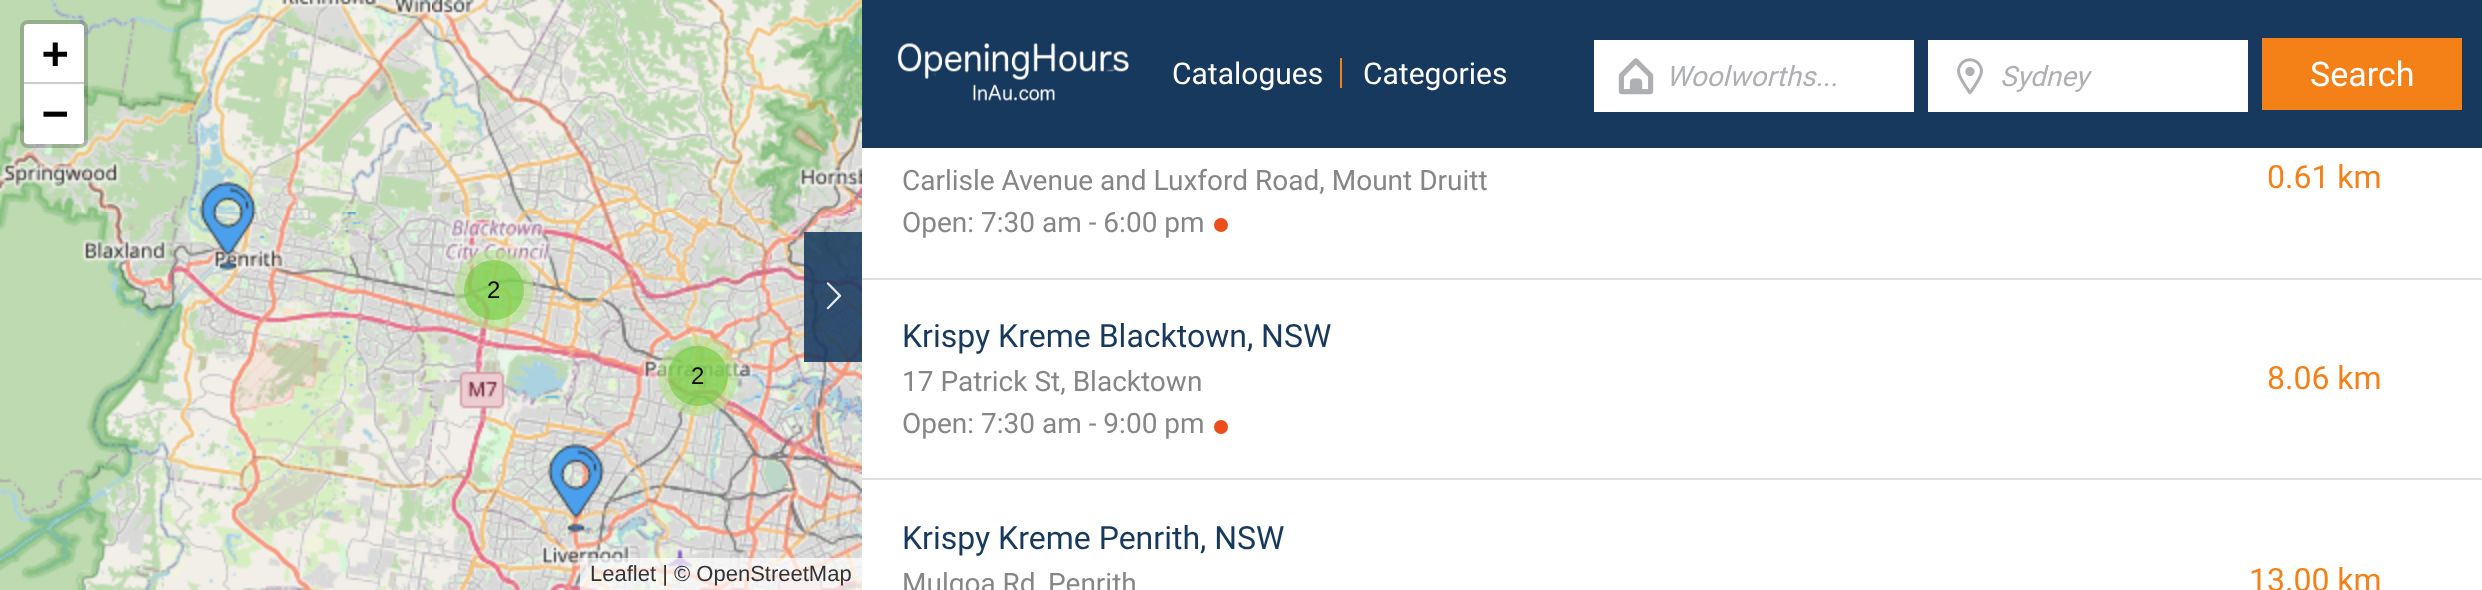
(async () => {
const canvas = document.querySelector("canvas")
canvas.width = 2482
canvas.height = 590
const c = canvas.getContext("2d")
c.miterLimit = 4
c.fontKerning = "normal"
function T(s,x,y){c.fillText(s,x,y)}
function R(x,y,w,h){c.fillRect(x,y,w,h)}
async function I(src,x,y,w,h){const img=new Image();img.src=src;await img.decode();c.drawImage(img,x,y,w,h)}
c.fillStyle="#fff"
R(0,0,2482,590)
await I("1.png",0,0,432,212)
c.beginPath()
c.roundRect(22,22,64,124,6)
c.strokeStyle="#00000033"
c.lineWidth=4
c.stroke()
c.beginPath()
c.roundRect(24,24,60,60,[4,4,0,0])
c.fill()
c.fillStyle="#ccc"
R(24,82,60,2)
c.font="bold 44px DejaVu Sans Mono"
c.fillStyle="#000"
T("+",42,68)
c.fillStyle="#fff"
c.beginPath()
c.roundRect(24,84,60,60,[0,0,4,4])
c.fill()
c.fillStyle="#000"
T("−",42,128)
await I("4.png",432,212,430,378)
c.fillStyle="#ffffffb3"
R(580,558,282,32)
c.font="22px Liberation Sans"
c.fillStyle="#333"
T("Leaflet | © OpenStreetMap",590,581)
await I("2.png",432,0,430,212)
await I("3.png",0,212,432,378)
await I("5.png",199,181,58,90)
c.fillStyle="#b5e28c99"
c.beginPath()
c.arc(494,290,40,0,7)
c.fill()
c.fillStyle="#6ecc3999"
c.beginPath()
c.arc(494,290,30,0,7)
c.fill()
c.font="24px Liberation Sans"
c.fillStyle="#000"
T("2",487,298)
c.fillStyle="#b5e28c99"
c.beginPath()
c.arc(698,376,40,0,7)
c.fill()
c.fillStyle="#6ecc3999"
c.beginPath()
c.arc(698,376,30,0,7)
c.fill()
c.fillStyle="#000"
T("2",691,384)
await I("6.png",547,443,58,90)
c.fillStyle="#17395e"
R(862,0,1620,148)
await I("7.png",897,43,232,59)
c.font="30px Roboto"
c.fillStyle="#fff"
T("Catalogues",1172,84)
c.fillStyle="#f38118"
R(1340,58,2,30)
c.fillStyle="#fff"
T("Categories",1363,84)
R(1594,40,320,72)
await I("8.png",1618,58,36,37)
c.font="italic 28px Roboto"
c.fillStyle="#aeb0b3"
T("Woolworths...",1666,86)
c.fillStyle="#fff"
R(1928,40,320,72)
await I("9.png",1957,58,26,37)
c.fillStyle="#aeb0b3"
T("Sydney",2000,86)
c.fillStyle="#f38118"
R(2262,38,200,72)
c.font="34px Roboto"
c.fillStyle="#fff"
T("Search",2310,86)
c.fillStyle="#17395ee0"
R(804,232,58,130)
await I("10.png",826,282,16,28)
c.fillStyle="#e0e0e0"
R(862,278,1620,2)
c.font="28px Roboto"
c.fillStyle="#868686"
T("Carlisle Avenue and Luxford Road, Mount Druitt",902,190)
c.font="32px Roboto"
c.fillStyle="#f38118"
T("0.61 km",2267,188)
c.font="28px Roboto"
c.fillStyle="#868686"
T("Open: 7:30 am - 6:00 pm",902,232)
c.fillStyle="#ec4e1b"
c.beginPath()
c.arc(1221,225,7,0,7)
c.fill()
c.fillStyle="#e0e0e0"
R(862,478,1620,2)
c.font="32px Roboto"
c.fillStyle="#17395e"
T("Krispy Kreme Blacktown, NSW",902,347)
c.font="28px Roboto"
c.fillStyle="#868686"
T("17 Patrick St, Blacktown",902,391)
c.font="32px Roboto"
c.fillStyle="#f38118"
T("8.06 km",2267,389)
c.font="28px Roboto"
c.fillStyle="#868686"
T("Open: 7:30 am - 9:00 pm",902,433)
c.fillStyle="#ec4e1b"
c.beginPath()
c.arc(1221,427,7,0,7)
c.fill()
c.font="32px Roboto"
c.fillStyle="#17395e"
T("Krispy Kreme Penrith, NSW",902,549)
c.font="28px Roboto"
c.fillStyle="#868686"
T("Mulgoa Rd, Penrith",902,593)
c.font="32px Roboto"
c.fillStyle="#f38118"
T("13.00 km",2249,591)
})()
